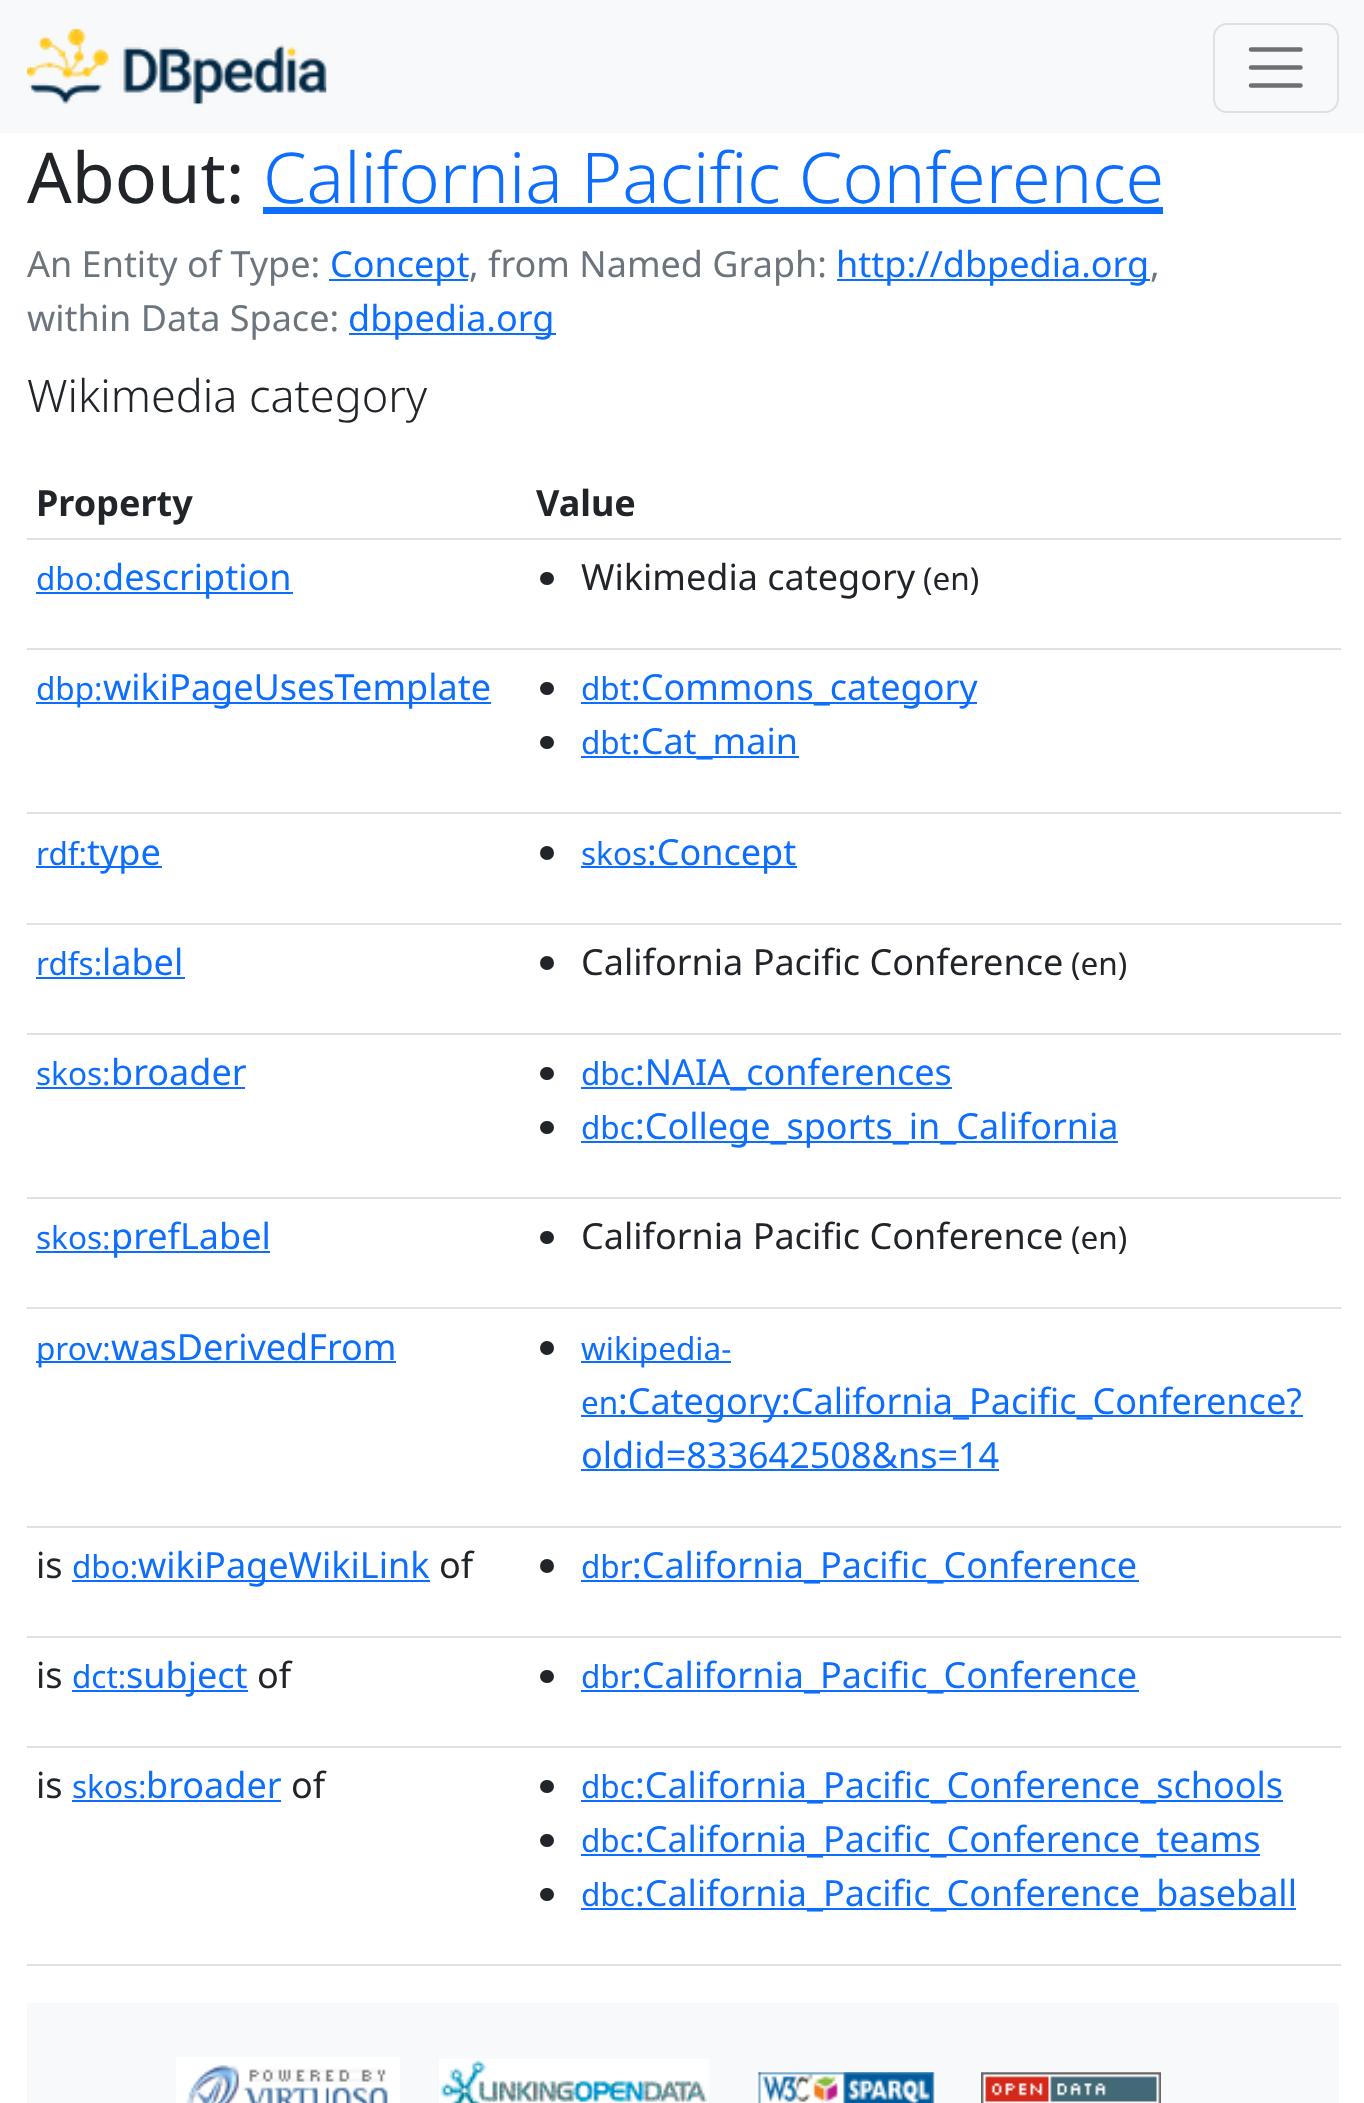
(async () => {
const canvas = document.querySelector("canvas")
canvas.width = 1364
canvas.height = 2103
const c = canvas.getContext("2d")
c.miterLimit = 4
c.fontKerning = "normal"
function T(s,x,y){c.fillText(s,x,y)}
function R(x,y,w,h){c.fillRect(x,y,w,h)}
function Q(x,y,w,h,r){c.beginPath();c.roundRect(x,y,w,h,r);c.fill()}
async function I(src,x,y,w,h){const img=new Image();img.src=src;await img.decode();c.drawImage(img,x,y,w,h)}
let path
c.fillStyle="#fff"
R(0,0,1364,2103)
c.fillStyle="#f8f9fa"
R(0,0,1364,133)
await I("1.png",27,29,300,76)
c.beginPath()
c.roundRect(1214,24,124,88,13)
c.strokeStyle="#dfe0e1"
c.lineWidth=2
c.stroke()
path = new Path2D("M1251 49.5h49.5m-49.5 18h49.5m-49.5 18h49.5")
c.strokeStyle="#707071"
c.lineWidth=4.5
c.lineCap="round"
c.stroke(path)
c.font="70px Noto Sans"
c.fillStyle="#212529"
T("About:",27,203)
c.font="300 70px Noto Sans"
c.fillStyle="#0d6efd"
T("California Pacific Conference",263,203)
R(263,207,900,7)
c.font="36px Noto Sans"
c.fillStyle="#6c757d"
T("An Entity of Type:",27,277)
c.fillStyle="#0d6efd"
R(329,279,139,2)
T("Concept",330,277)
c.fillStyle="#6c757d"
T(", from Named Graph:",469,277)
c.fillStyle="#0d6efd"
R(837,279,313,2)
T("http://dbpedia.org",836,277)
c.fillStyle="#6c757d"
T(",",1150,277)
T("within Data Space:",27,331)
c.fillStyle="#0d6efd"
R(349,333,207,2)
T("dbpedia.org",348,331)
c.font="300 45px Noto Sans"
c.fillStyle="#212529"
T("Wikimedia category",27,412)
c.font="bold 36px Noto Sans"
T("Property",36,516)
c.fillStyle="#dee2e6"
R(27,538,1314,2)
c.fillStyle="#212529"
T("Value",536,516)
c.font="31.5px Noto Sans"
c.fillStyle="#0d6efd"
T("dbo:",36,590)
R(36,592,257,2)
c.font="36px Noto Sans"
T("description",102,590)
c.fillStyle="#dee2e6"
R(27,648,1314,2)
c.fillStyle="#212529"
Q(540,572,14,13,6.5)
T("Wikimedia category",581,590)
c.font="31.5px Noto Sans"
T("(en)",923,590)
c.fillStyle="#0d6efd"
R(36,702,455,2)
T("dbp:",36,700)
c.font="36px Noto Sans"
T("wikiPageUsesTemplate",103,700)
c.fillStyle="#dee2e6"
R(27,812,1314,2)
c.fillStyle="#212529"
Q(540,682,14,13,6.5)
c.font="31.5px Noto Sans"
c.fillStyle="#0d6efd"
T("dbt",581,700)
R(581,702,396,2)
c.font="36px Noto Sans"
T(":Commons_category",631,700)
c.fillStyle="#212529"
Q(540,736,14,13,6.5)
c.font="31.5px Noto Sans"
c.fillStyle="#0d6efd"
T("dbt",581,754)
R(581,756,218,2)
c.font="36px Noto Sans"
T(":Cat_main",631,754)
c.font="31.5px Noto Sans"
T("rdf:",36,865)
R(36,866,126,2)
c.font="36px Noto Sans"
T("type",87,865)
c.fillStyle="#dee2e6"
R(27,923,1314,2)
c.fillStyle="#212529"
c.beginPath()
c.arc(547,853,7,0,7)
c.fill()
c.font="31.5px Noto Sans"
c.fillStyle="#0d6efd"
T("skos",581,865)
R(581,866,216,2)
c.font="36px Noto Sans"
T(":Concept",647,865)
c.font="31.5px Noto Sans"
T("rdfs:",36,975)
R(36,977,149,2)
c.font="36px Noto Sans"
T("label",102,975)
c.fillStyle="#dee2e6"
R(27,1033,1314,2)
c.fillStyle="#212529"
c.beginPath()
c.arc(547,963,7,0,7)
c.fill()
T("California Pacific Conference",581,975)
c.font="31.5px Noto Sans"
T("(en)",1071,975)
c.fillStyle="#0d6efd"
T("skos:",36,1085)
R(36,1087,209,2)
c.font="36px Noto Sans"
T("broader",111,1085)
c.fillStyle="#dee2e6"
R(27,1197,1314,2)
c.fillStyle="#212529"
Q(540,1067,14,13,6.5)
c.font="31.5px Noto Sans"
c.fillStyle="#0d6efd"
T("dbc",581,1085)
R(581,1087,371,2)
c.font="36px Noto Sans"
T(":NAIA_conferences",635,1085)
c.fillStyle="#212529"
Q(540,1121,14,13,6.5)
c.font="31.5px Noto Sans"
c.fillStyle="#0d6efd"
T("dbc",581,1139)
R(581,1141,537,2)
c.font="36px Noto Sans"
T(":College_sports_in_California",635,1139)
c.font="31.5px Noto Sans"
T("skos:",36,1249)
R(36,1251,234,2)
c.font="36px Noto Sans"
T("prefLabel",111,1249)
c.fillStyle="#dee2e6"
R(27,1307,1314,2)
c.fillStyle="#212529"
Q(540,1231,14,13,6.5)
T("California Pacific Conference",581,1249)
c.font="31.5px Noto Sans"
T("(en)",1071,1249)
c.fillStyle="#0d6efd"
R(36,1361,360,2)
T("prov:",36,1360)
c.font="36px Noto Sans"
T("wasDerivedFrom",111,1360)
c.fillStyle="#dee2e6"
R(27,1526,1314,2)
c.fillStyle="#212529"
c.beginPath()
c.arc(547,1348,7,0,7)
c.fill()
c.fillStyle="#0d6efd"
R(581,1361,150,2)
c.font="31.5px Noto Sans"
T("wikipedia-",581,1360)
T("en",581,1414)
R(581,1415,722,2)
c.font="36px Noto Sans"
T(":Category:California_Pacific_Conference?",618,1414)
T("oldid=833642508&ns=14",581,1468)
R(581,1469,418,2)
c.fillStyle="#212529"
T("is",36,1578)
c.font="31.5px Noto Sans"
c.fillStyle="#0d6efd"
T("dbo:",72,1578)
R(72,1580,358,2)
c.font="36px Noto Sans"
T("wikiPageWikiLink",138,1578)
c.fillStyle="#212529"
T("of",439,1578)
c.fillStyle="#dee2e6"
R(27,1636,1314,2)
c.fillStyle="#212529"
c.beginPath()
c.arc(547,1566,7,0,7)
c.fill()
c.font="31.5px Noto Sans"
c.fillStyle="#0d6efd"
T("dbr",581,1578)
R(581,1580,558,2)
c.font="36px Noto Sans"
T(":California_Pacific_Conference",632,1578)
c.fillStyle="#212529"
T("is",36,1688)
c.font="31.5px Noto Sans"
c.fillStyle="#0d6efd"
T("dct:",72,1688)
R(72,1690,176,2)
c.font="36px Noto Sans"
T("subject",126,1688)
c.fillStyle="#212529"
T("of",257,1688)
c.fillStyle="#dee2e6"
R(27,1746,1314,2)
c.fillStyle="#212529"
Q(540,1670,14,13,6.5)
c.font="31.5px Noto Sans"
c.fillStyle="#0d6efd"
T("dbr",581,1688)
R(581,1690,558,2)
c.font="36px Noto Sans"
T(":California_Pacific_Conference",632,1688)
c.fillStyle="#212529"
T("is",36,1798)
c.font="31.5px Noto Sans"
c.fillStyle="#0d6efd"
T("skos:",72,1798)
R(72,1800,209,2)
c.font="36px Noto Sans"
T("broader",146,1798)
c.fillStyle="#212529"
T("of",291,1798)
c.fillStyle="#dee2e6"
R(27,1964,1314,2)
c.fillStyle="#212529"
Q(540,1780,14,13,6.5)
c.font="31.5px Noto Sans"
c.fillStyle="#0d6efd"
T("dbc",581,1798)
R(581,1800,702,2)
c.font="36px Noto Sans"
T(":California_Pacific_Conference_schools",635,1798)
c.fillStyle="#212529"
Q(540,1834,14,13,6.5)
c.font="31.5px Noto Sans"
c.fillStyle="#0d6efd"
T("dbc",581,1852)
R(581,1854,679,2)
c.font="36px Noto Sans"
T(":California_Pacific_Conference_teams",635,1852)
c.fillStyle="#212529"
Q(540,1888,14,13,6.5)
c.font="31.5px Noto Sans"
c.fillStyle="#0d6efd"
T("dbc",581,1906)
R(581,1908,715,2)
c.font="36px Noto Sans"
T(":California_Pacific_Conference_baseball",635,1906)
c.fillStyle="#f8f9fa"
R(27,2003,1312,100)
await I("2.png",176,2057,224,46)
await I("3.png",439,2059,270,44)
await I("4.png",756,2072,180,31)
await I("5.png",981,2072,180,31)
})()
